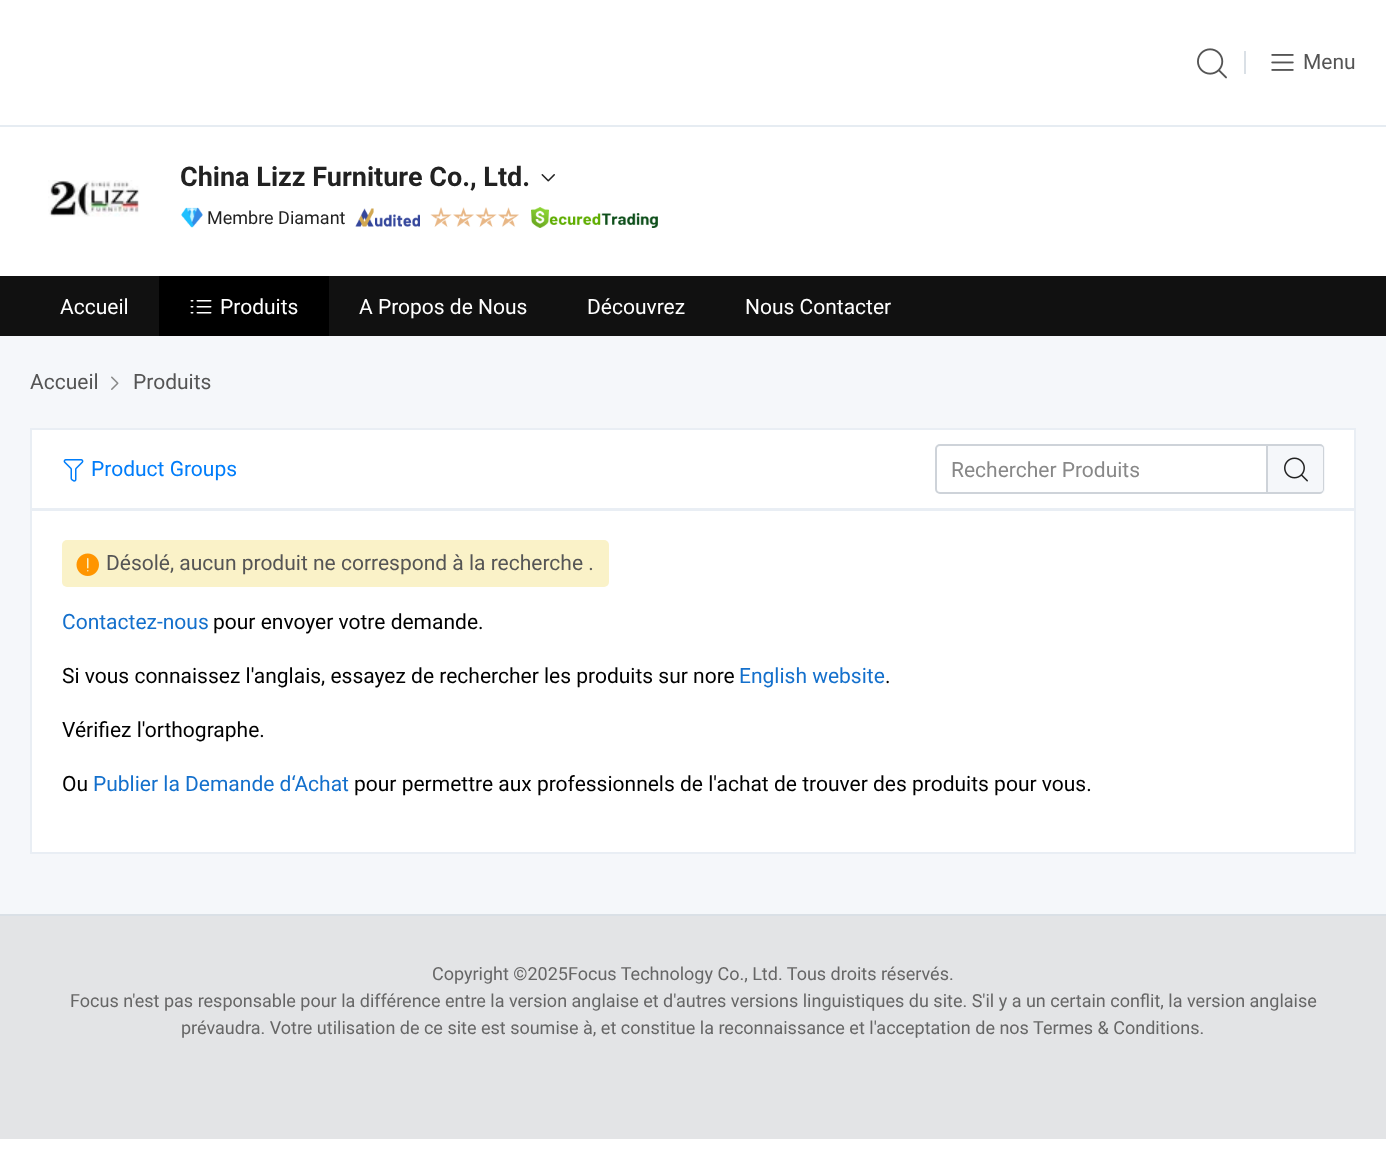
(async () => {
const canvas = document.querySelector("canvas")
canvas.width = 1386
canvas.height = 1176
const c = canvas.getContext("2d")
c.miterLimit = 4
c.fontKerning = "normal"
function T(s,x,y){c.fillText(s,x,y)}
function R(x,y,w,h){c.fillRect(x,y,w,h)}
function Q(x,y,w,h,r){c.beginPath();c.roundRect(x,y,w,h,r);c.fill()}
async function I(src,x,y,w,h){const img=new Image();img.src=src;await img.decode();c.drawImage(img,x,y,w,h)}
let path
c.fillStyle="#fff"
R(0,0,1386,1176)
await I("1.png",1197,48,30,31)
c.fillStyle="#dae0e6"
R(1244,51,2,23)
await I("2.png",1271,54,23,17)
c.font="21px Roboto"
c.fillStyle="#555"
T("Menu",1303,69)
c.fillStyle="#e6ecf2"
R(0,125,1386,2)
await I("3.png",48,180,92,37)
c.font="bold 27px Roboto"
c.fillStyle="#222"
T("China Lizz Furniture Co., Ltd.",180,186)
await I("4.png",541,174,14,8)
await I("5.png",181,207,22,21)
c.font="18px Roboto"
T("Membre Diamant",207,224)
await I("6.png",355,208,65,19)
await I("7.png",430,207,22,21)
await I("8.png",453,207,21,20)
await I("7.png",475,207,22,21)
await I("8.png",498,207,21,20)
await I("9.png",531,207,127,21)
c.fillStyle="#111"
R(0,276,1386,60)
c.font="21px Roboto"
c.fillStyle="#fff"
T("Accueil",60,314)
c.fillStyle="#000"
R(159,276,170,60)
await I("10.png",190,300,22,14)
c.fillStyle="#fff"
T("Produits",220,314)
T("A Propos de Nous",359,314)
T("Découvrez",587,314)
T("Nous Contacter",745,314)
c.fillStyle="#f5f7fa"
R(0,336,1386,578)
c.fillStyle="#555"
T("Accueil",30,389)
await I("11.png",111,376,8,14)
T("Produits",133,389)
c.fillStyle="#fff"
c.beginPath()
c.rect(31,429,1324,80)
c.fill()
c.strokeStyle="#e9eef4"
c.lineWidth=2
c.stroke()
await I("12.png",63,459,21,23)
c.fillStyle="#007dfa"
T("Product Groups",91,476)
c.beginPath()
c.roundRect(936,445,331,48,[4,0,0,4])
c.strokeStyle="#ced3d9"
c.stroke()
c.fillStyle="#888"
T("Rechercher Produits",951,477)
c.fillStyle="#f5f7fa"
c.beginPath()
c.roundRect(1268,444,57,50,[0,5,5,0])
c.fill()
c.fillStyle="#ced3d9"
path = new Path2D("M1268 444h52c2 0 4 2 4 4v41c0 2-2 5-4 5h-52zm0 2h52c2 0 3 1 3 2v41c0 2-1 3-3 3h-52z")
c.fill(path,"evenodd")
await I("13.png",1284,457,24,25)
c.fillStyle="#fff"
c.beginPath()
c.rect(31,510,1324,343)
c.fill()
c.strokeStyle="#e9eef4"
c.stroke()
c.fillStyle="#faf2c8"
Q(62,540,547,47,5)
await I("14.png",76,553,23,23)
c.fillStyle="#555"
T("Désolé, aucun produit ne correspond à la recherche .",106,570)
c.fillStyle="#1470cc"
T("Contactez-nous",62,629)
c.fillStyle="#000"
T("pour envoyer votre demande.",213,629)
T("Si vous connaissez l'anglais, essayez de rechercher les produits sur nore",62,683)
c.fillStyle="#1470cc"
T("English website",739,683)
c.fillStyle="#000"
T(".",885,683)
T("Vérifiez l'orthographe.",62,737)
T("Ou",62,791)
c.fillStyle="#1470cc"
T("Publier la Demande d‘Achat",93,791)
c.fillStyle="#000"
T("pour permettre aux professionnels de l'achat de trouver des produits pour vous.",354,791)
c.fillStyle="#e3e4e6"
R(0,916,1386,223)
c.fillStyle="#dae0e6"
R(0,914,1386,2)
c.font="18px Roboto"
c.fillStyle="#666"
T("Copyright ©2025Focus Technology Co., Ltd. Tous droits réservés.",432,980)
T("Focus n'est pas responsable pour la différence entre la version anglaise et d'autres versions linguistiques du site. S'il y a un certain conflit, la version anglaise",70,1007)
T("prévaudra. Votre utilisation de ce site est soumise à, et constitue la reconnaissance et l'acceptation de nos Termes & Conditions.",181,1034)
})()
